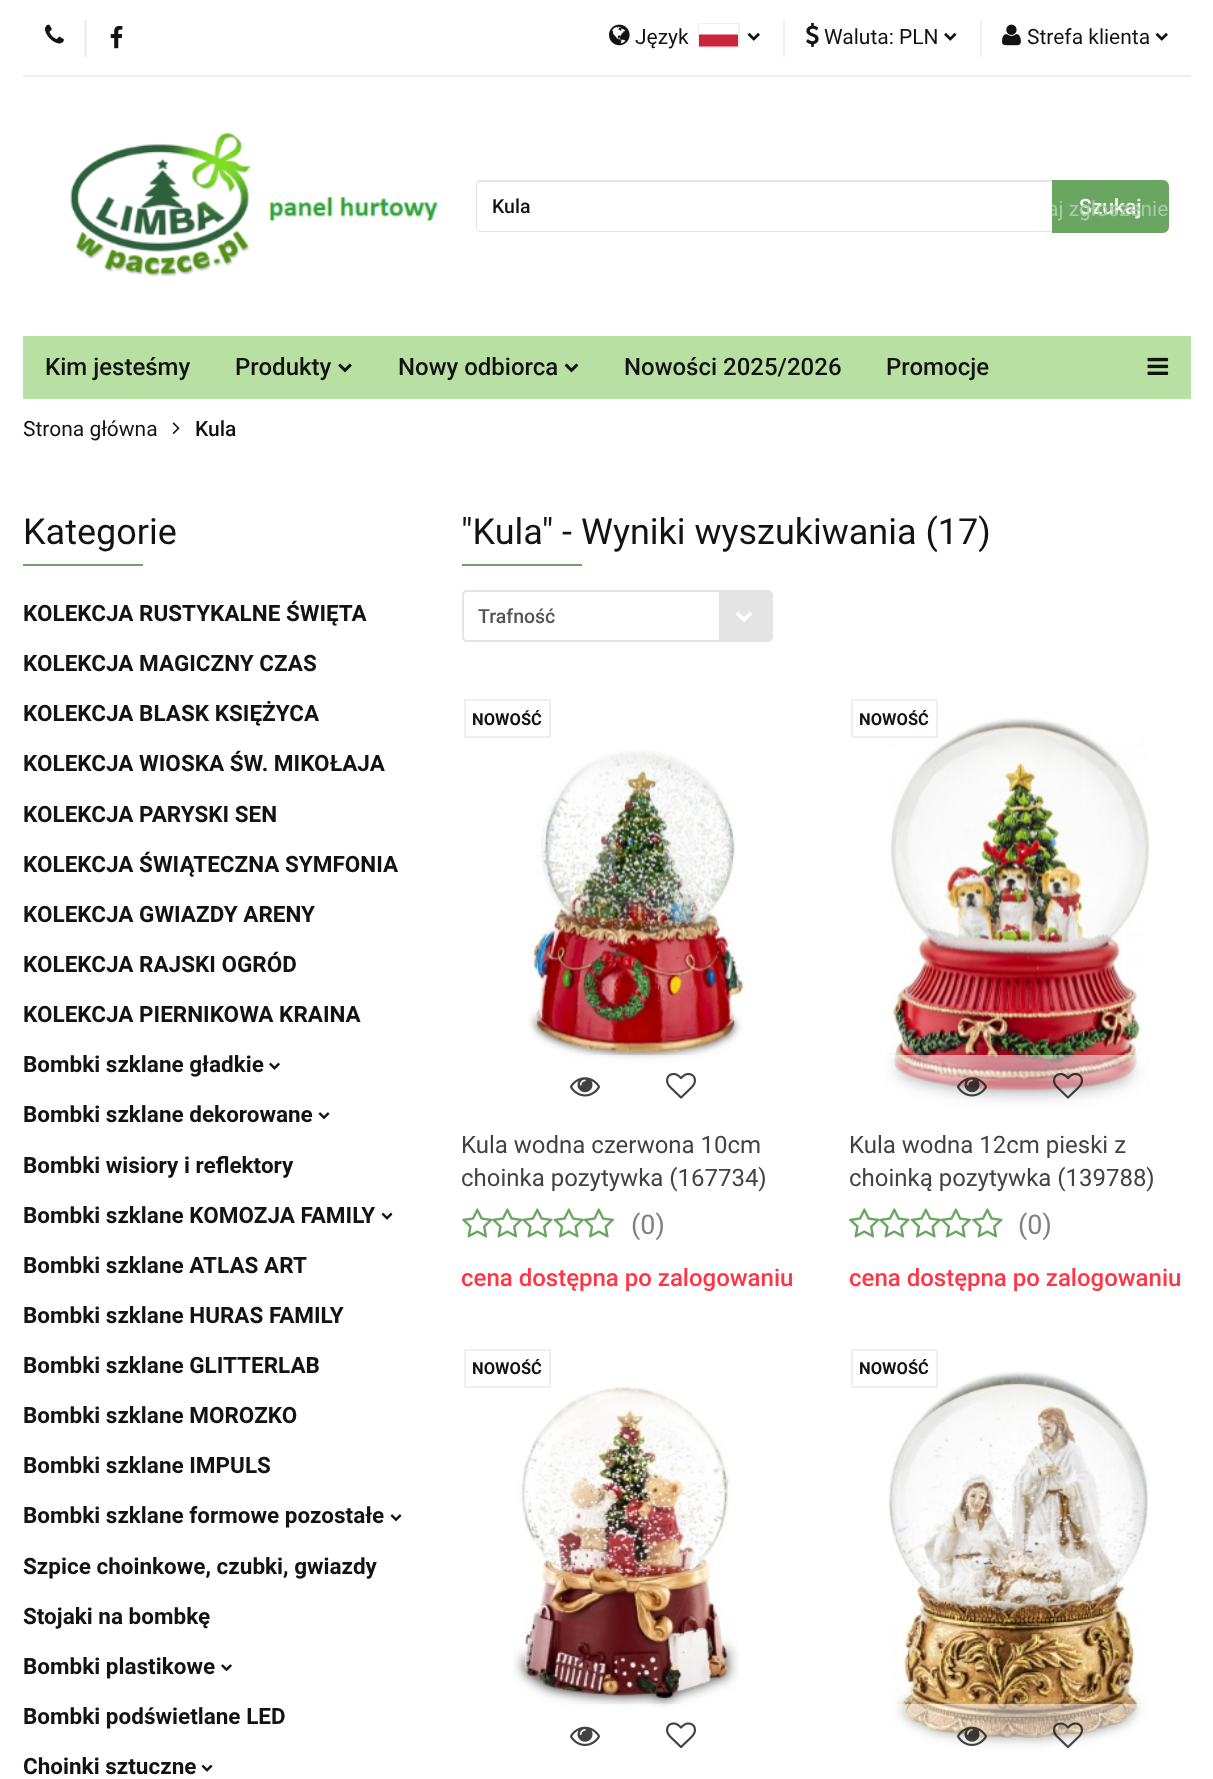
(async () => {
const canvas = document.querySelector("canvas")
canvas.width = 1213
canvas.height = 1779
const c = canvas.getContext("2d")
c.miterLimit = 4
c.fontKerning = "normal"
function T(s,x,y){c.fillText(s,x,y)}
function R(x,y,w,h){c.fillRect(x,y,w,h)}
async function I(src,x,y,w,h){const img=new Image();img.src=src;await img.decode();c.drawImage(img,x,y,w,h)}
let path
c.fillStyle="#fff"
R(0,0,1213,1779)
c.fillStyle="#efefef"
R(23,75,1168,2)
await I("1.png",45,24,19,20)
R(84,20,3,37)
await I("2.png",110,25,13,24)
await I("3.png",609,24,21,22)
c.strokeStyle="#efefef"
c.lineWidth=2
c.strokeRect(699,24,40,23)
c.font="21px Roboto"
c.fillStyle="#131313"
T("Język",635,44)
await I("4.png",699,24,39,23)
await I("5.png",747,33,13,8)
c.fillStyle="#efefef"
R(783,20,2,37)
await I("6.png",806,22,13,25)
c.fillStyle="#131313"
T("Waluta: PLN",824,44)
await I("7.png",944,33,13,8)
c.fillStyle="#efefef"
R(980,20,2,37)
await I("8.png",1002,24,19,22)
c.fillStyle="#131313"
T("Strefa klienta",1027,44)
await I("5.png",1155,33,13,8)
c.fillStyle="#6aa562"
c.beginPath()
c.roundRect(1054.5,182.5,112,48,[0,3.5,3.5,0])
c.fill()
c.strokeStyle="#6aa562"
c.lineWidth=5
c.stroke()
c.font="500 21px Roboto"
c.fillStyle="#fff"
T("Szukaj",1079,214)
c.font="21px Roboto"
c.fillStyle="#a9cba5"
T("aj zgłoszenie",1047,216)
await I("9.png",70,132,368,145)
c.fillStyle="#fff"
c.beginPath()
c.roundRect(476,180,576,53,[5,0,0,5])
c.fill()
c.fillStyle="#e4e4e4"
path = new Path2D("M480 180h572v52h-572c-2 0-4-2-4-4v-44c0-2 2-4 4-4zm0 2h572v49h-572c-2 0-3-1-3-3v-44c0-1 1-2 3-2z")
c.fill(path,"evenodd")
c.font="500 19.5px Roboto"
c.fillStyle="#131313"
T("Kula",492,213)
c.fillStyle="#b9e0a3"
R(23,336,1168,63)
c.font="500 24px Roboto"
c.fillStyle="#131313"
T("Kim jesteśmy",45,375)
T("Produkty",235,375)
await I("10.png",338,363,14,10)
T("Nowy odbiorca",398,375)
await I("11.png",564,363,15,10)
T("Nowości 2025/2026",624,375)
T("Promocje",886,375)
await I("12.png",1147,357,22,18)
c.font="21px Roboto"
T("Strona główna",23,436)
await I("13.png",172,422,8,12)
c.font="500 21px Roboto"
T("Kula",195,436)
c.font="36px Roboto"
T("Kategorie",23,544)
c.fillStyle="#6aa562"
R(23,564,120,2)
c.font="bold 22.5px Roboto"
c.fillStyle="#131313"
T("KOLEKCJA RUSTYKALNE ŚWIĘTA",23,621)
T("KOLEKCJA MAGICZNY CZAS",23,671)
T("KOLEKCJA BLASK KSIĘŻYCA",23,721)
T("KOLEKCJA WIOSKA ŚW. MIKOŁAJA",23,771)
T("KOLEKCJA PARYSKI SEN",23,822)
T("KOLEKCJA ŚWIĄTECZNA SYMFONIA",23,872)
T("KOLEKCJA GWIAZDY ARENY",23,922)
T("KOLEKCJA RAJSKI OGRÓD",23,972)
T("KOLEKCJA PIERNIKOWA KRAINA",23,1022)
T("Bombki szklane gładkie",23,1072)
await I("14.png",269,1062,11,8)
T("Bombki szklane dekorowane",23,1122)
await I("15.png",318,1112,12,8)
T("Bombki wisiory i reflektory",23,1173)
T("Bombki szklane KOMOZJA FAMILY",23,1223)
await I("16.png",381,1212,12,8)
T("Bombki szklane ATLAS ART",23,1273)
T("Bombki szklane HURAS FAMILY",23,1323)
T("Bombki szklane GLITTERLAB",23,1373)
T("Bombki szklane MOROZKO",23,1423)
T("Bombki szklane IMPULS",23,1473)
T("Bombki szklane formowe pozostałe",23,1523)
await I("15.png",390,1514,12,8)
T("Szpice choinkowe, czubki, gwiazdy",23,1574)
T("Stojaki na bombkę",23,1624)
T("Bombki plastikowe",23,1674)
await I("17.png",221,1664,11,8)
T("Bombki podświetlane LED",23,1724)
T("Choinki sztuczne",23,1774)
await I("16.png",201,1764,12,8)
c.font="36px Roboto"
T("\"Kula\" - Wyniki wyszukiwania (17)",461,544)
c.fillStyle="#6aa562"
R(462,564,120,2)
c.beginPath()
c.roundRect(463,591,309,50,4)
c.strokeStyle="#e4e4e4"
c.lineWidth=2
c.stroke()
c.font="500 19.5px Roboto"
c.fillStyle="#555"
T("Trafność",478,623)
c.fillStyle="#e4e4e4"
c.beginPath()
c.roundRect(719,591,52,50,[0,3,3,0])
c.fill()
await I("18.png",736,611,16,11)
c.strokeStyle="#efefef"
c.strokeRect(465,700,85,37)
c.font="bold 16.5px Roboto"
c.fillStyle="#131313"
T("NOWOŚĆ",472,725)
await I("19.png",528,750,218,312)
c.fillStyle="#ffffff80"
R(582,1055,116,6)
await I("20.png",570,1077,30,20)
await I("21.png",666,1072,30,27)
c.font="24px Roboto"
c.fillStyle="#424242"
T("Kula wodna czerwona 10cm",461,1153)
T("choinka pozytywka (167734)",461,1186)
await I("22.png",462,1208,31,30)
await I("23.png",492,1208,31,30)
await I("23.png",522,1208,31,30)
await I("24.png",553,1208,31,30)
await I("25.png",583,1208,32,30)
c.font="27px Roboto"
c.fillStyle="#808080"
T("(0)",631,1234)
c.font="500 24px Roboto"
c.fillStyle="#ff3545"
T("cena dostępna po zalogowaniu",461,1286)
await I("26.png",885,717,264,391)
c.strokeRect(852,700,85,37)
c.font="bold 16.5px Roboto"
c.fillStyle="#131313"
T("NOWOŚĆ",859,725)
c.fillStyle="#ffffff80"
R(886,1055,259,52)
await I("27.png",957,1077,30,20)
await I("28.png",1053,1072,30,27)
c.font="24px Roboto"
c.fillStyle="#424242"
T("Kula wodna 12cm pieski z",849,1153)
T("choinką pozytywka (139788)",849,1186)
await I("22.png",849,1208,31,30)
await I("23.png",879,1208,31,30)
await I("24.png",910,1208,31,30)
await I("25.png",940,1208,32,30)
await I("22.png",972,1208,31,30)
c.font="27px Roboto"
c.fillStyle="#808080"
T("(0)",1018,1234)
c.font="500 24px Roboto"
c.fillStyle="#ff3545"
T("cena dostępna po zalogowaniu",849,1286)
await I("29.png",513,1387,226,323)
c.strokeRect(465,1350,85,37)
c.font="bold 16.5px Roboto"
c.fillStyle="#131313"
T("NOWOŚĆ",472,1374)
c.fillStyle="#ffffff80"
R(580,1704,101,6)
await I("30.png",570,1726,30,20)
await I("31.png",666,1722,30,27)
await I("32.png",888,1371,261,381)
c.strokeRect(852,1350,85,37)
c.fillStyle="#131313"
T("NOWOŚĆ",859,1374)
c.fillStyle="#ffffff80"
R(893,1704,252,47)
await I("33.png",957,1726,30,20)
await I("34.png",1053,1722,30,27)
})()
